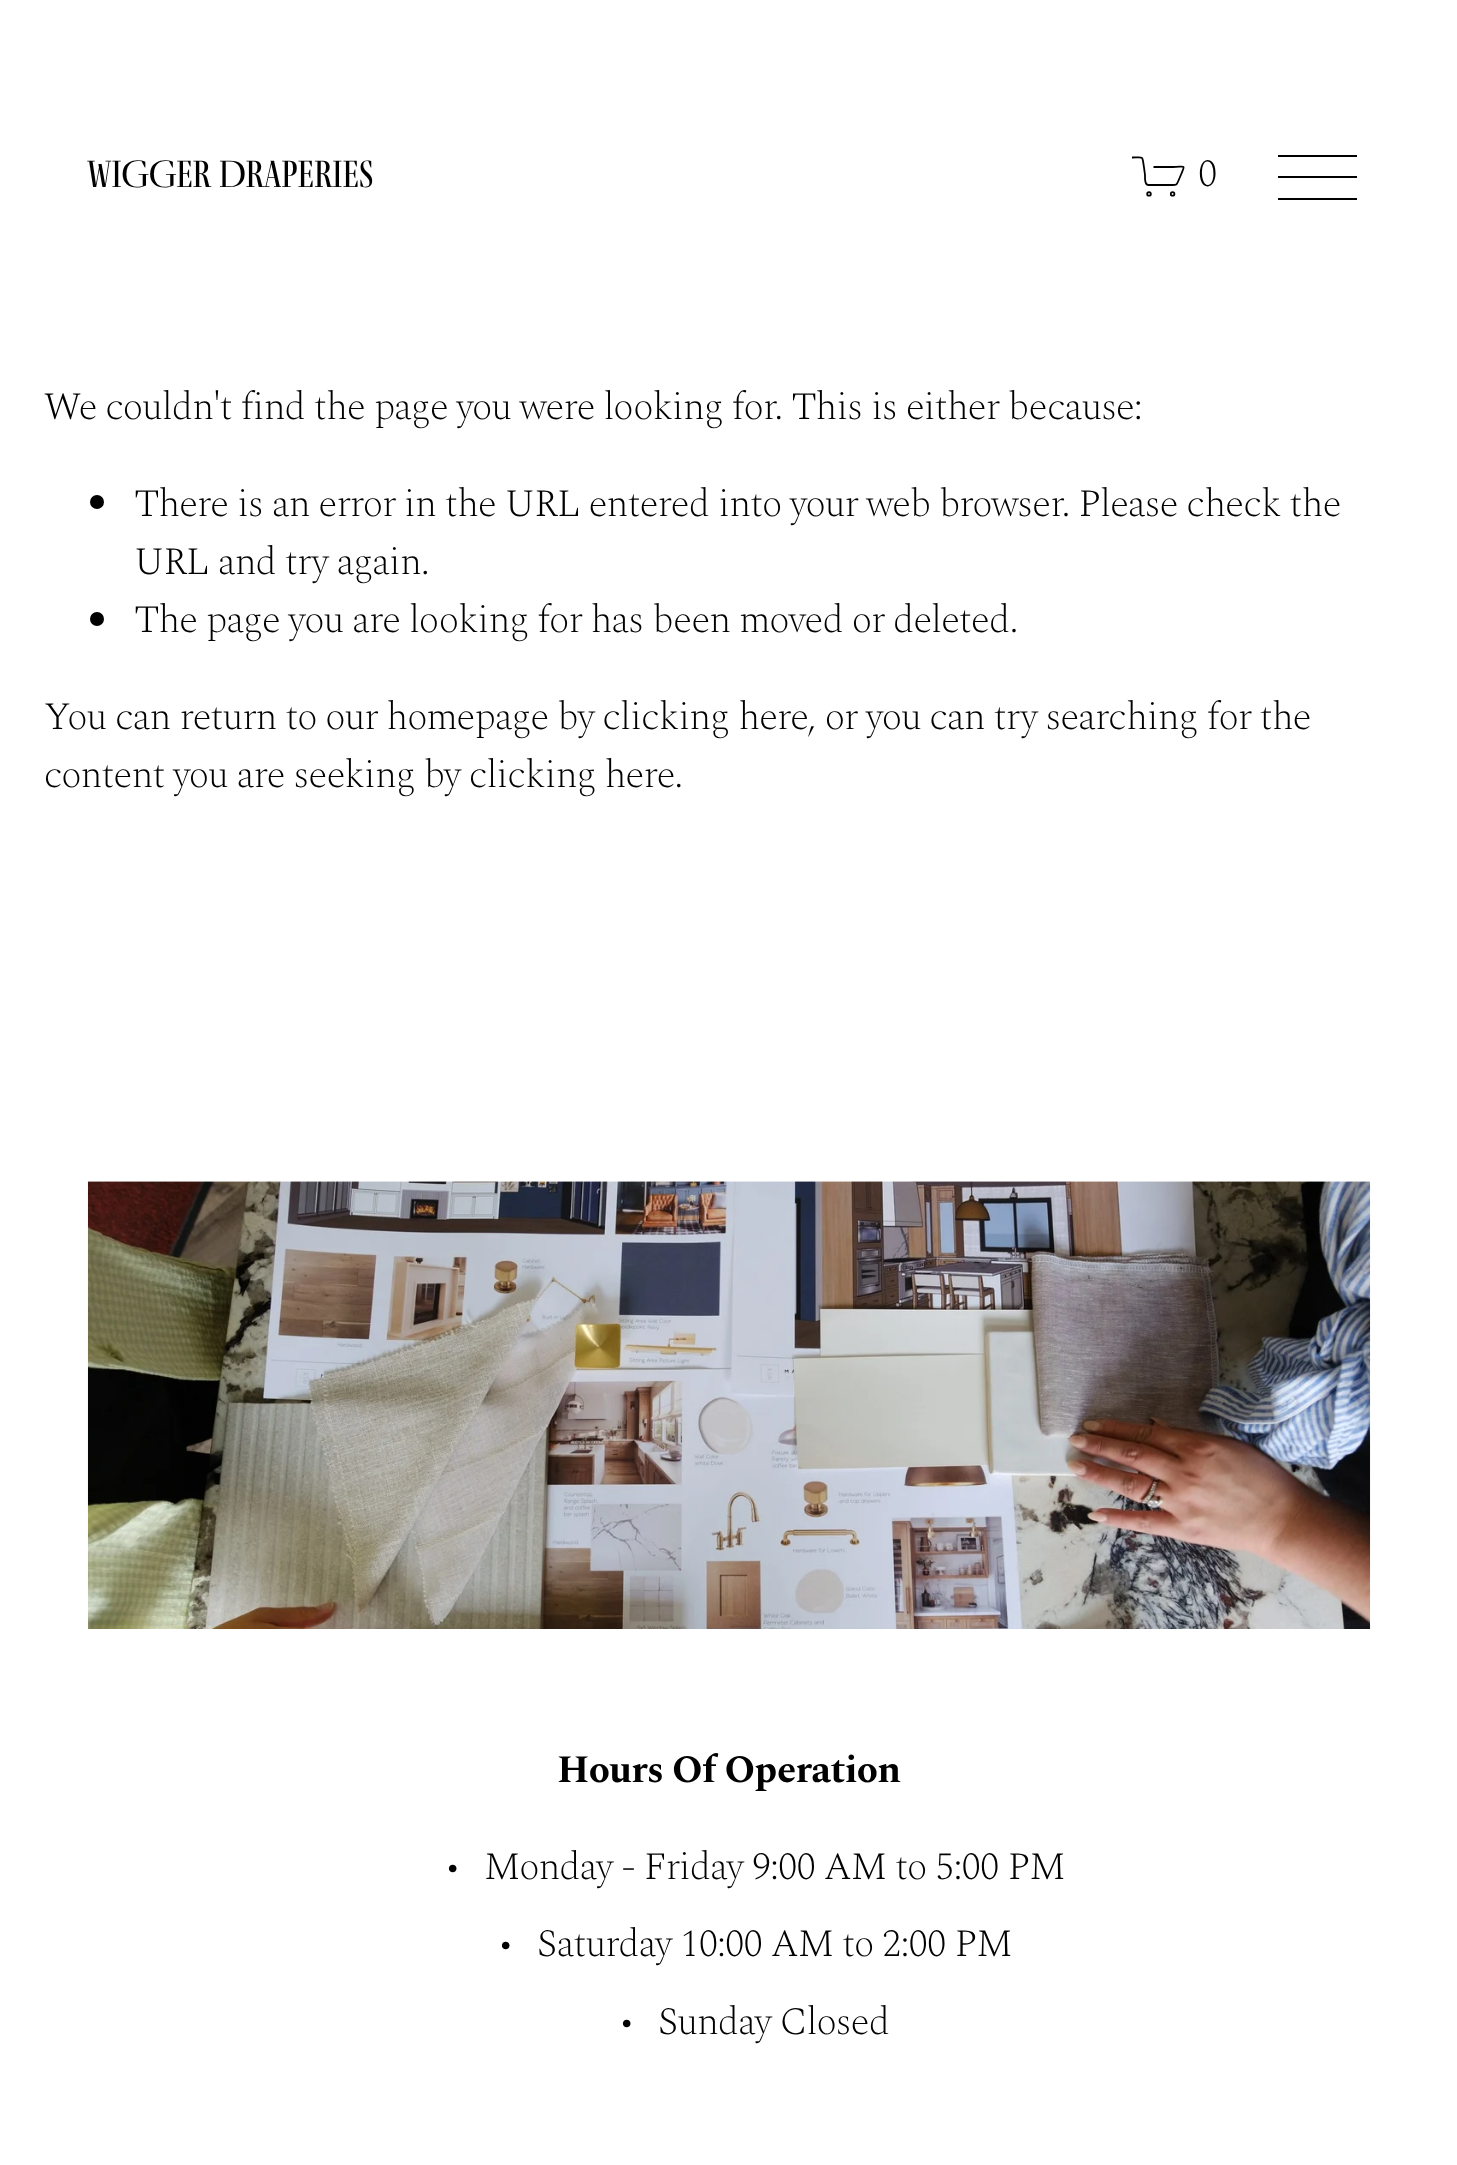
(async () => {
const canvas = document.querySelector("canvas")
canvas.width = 1457
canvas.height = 2165
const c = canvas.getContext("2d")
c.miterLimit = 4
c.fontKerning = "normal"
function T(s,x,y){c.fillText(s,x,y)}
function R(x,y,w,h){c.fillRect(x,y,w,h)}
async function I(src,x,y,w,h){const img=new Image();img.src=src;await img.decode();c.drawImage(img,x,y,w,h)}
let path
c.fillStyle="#fff"
R(0,0,1457,2165)
c.font="38.8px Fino"
c.fillStyle="#000"
T("WIGGER DRAPERIES",87,187)
c.beginPath()
c.arc(1172.6,193.9,1.8,0,7)
c.strokeStyle="#000"
c.lineWidth=1.8
c.stroke()
c.beginPath()
c.arc(1149,193.9,1.8,0,7)
c.stroke()
path = new Path2D("M1132 157.5c12 0 10-2.5 12 10l1 7.5c0 1.5-.5 10 3 10h22.5c6 0 6 .5 8-4.5l3-7c4-9.5 3-6.5-8.5-6.5h-19.5")
c.stroke(path)
c.letterSpacing="-0.78px"
c.font="200 38.8px Spectral"
T("0",1198,186)
R(1278,155,79,2)
R(1278,176,79,2)
R(1278,198,79,2)
T("We couldn't find the page you were looking for. This is either because:",44,419)
c.beginPath()
c.arc(97,502,7,0,7)
c.fill()
T("There is an error in the URL entered into your web browser. Please check the",134,516)
T("URL and try again.",134,574)
c.beginPath()
c.arc(97,619,7,0,7)
c.fill()
T("The page you are looking for has been moved or deleted.",134,632)
T("You can return to our homepage by clicking here, or you can try searching for the",44,729)
T("content you are seeking by clicking here.",44,787)
await I("1.png",87,1181,1284,448)
c.font="bold 38.8px Spectral"
T("Hours Of Operation",557,1782)
c.font="200 38.8px Spectral"
T("•",443,1879)
T("Monday - Friday 9:00 AM to 5:00 PM",484,1879)
T("•",496,1956)
T("Saturday 10:00 AM to 2:00 PM",537,1956)
T("•",617,2034)
T("Sunday Closed",658,2034)
})()
